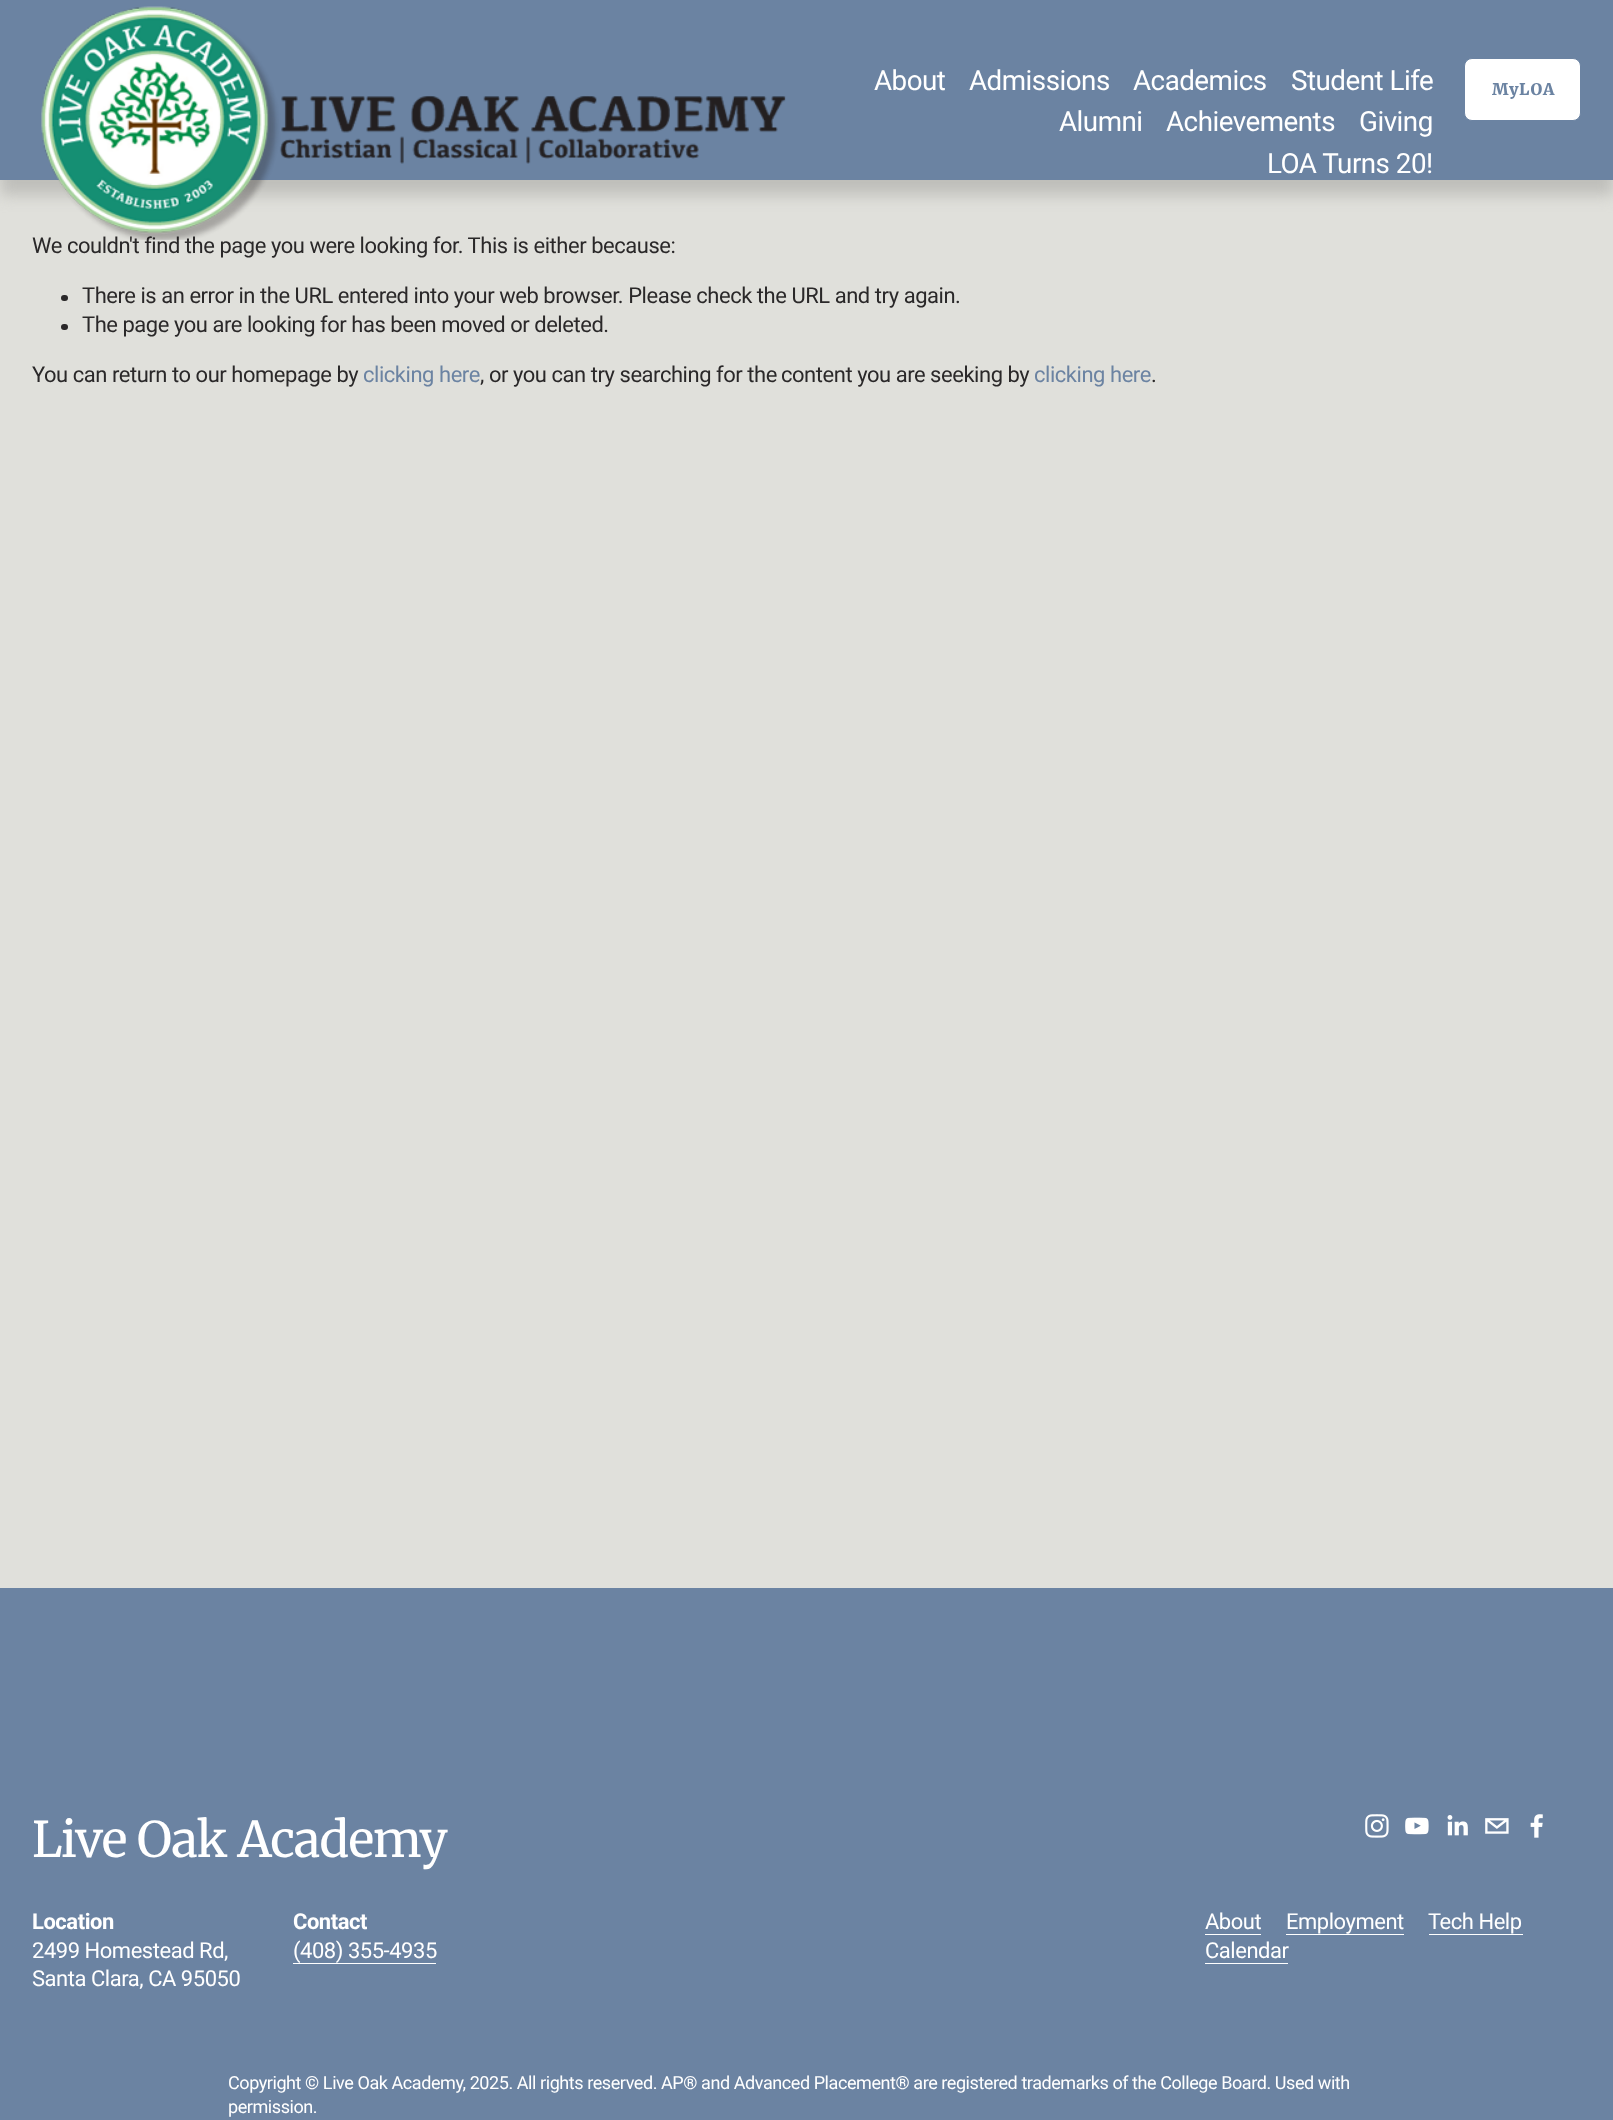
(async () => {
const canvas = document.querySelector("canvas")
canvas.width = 1613
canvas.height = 2120
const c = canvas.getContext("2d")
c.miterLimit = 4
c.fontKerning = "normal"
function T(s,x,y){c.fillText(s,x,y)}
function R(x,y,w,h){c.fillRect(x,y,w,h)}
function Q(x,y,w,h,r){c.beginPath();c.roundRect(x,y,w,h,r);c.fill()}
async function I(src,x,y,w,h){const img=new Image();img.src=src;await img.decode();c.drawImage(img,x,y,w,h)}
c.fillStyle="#e0e0db"
R(0,0,1613,2120)
c.fillStyle="#bebeba"
c.filter="blur(7.5px)"
c.beginPath()
c.rect(0,15,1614,180)
c.fill()
c.filter="none"
c.fillStyle="#6b83a2"
R(0,0,1613,180)
c.letterSpacing="-0.44px"
c.font="21.95px Roboto"
c.fillStyle="#2a2829"
T("We couldn't find the page you were looking for. This is either because:",32,253)
await I("1.png",41,6,745,234)
c.letterSpacing="-0.5px"
c.font="27.75px Roboto"
c.fillStyle="#fff"
T("About",874,90)
T("Admissions",969,90)
T("Academics",1133,90)
T("Student Life",1291,90)
T("Alumni",1059,131)
T("Achievements",1166,131)
T("Giving",1359,131)
T("LOA Turns 20!",1267,173)
c.beginPath()
c.roundRect(1464.5,58.5,116,62,7.5)
c.fill()
c.strokeStyle="#6b83a2"
c.stroke()
c.letterSpacing="1px"
c.font="900 16px Merriweather"
c.fillStyle="#6b83a2"
T("MyLOA",1492,95)
c.fillStyle="#2a2829"
Q(61,295,7,6,3)
c.letterSpacing="-0.44px"
c.font="21.95px Roboto"
T("There is an error in the URL entered into your web browser. Please check the URL and try again.",82,303)
Q(61,324,7,6,3)
T("The page you are looking for has been moved or deleted.",82,332)
T("You can return to our homepage by",32,382)
c.fillStyle="#6b83a2"
T("clicking here",363,382)
c.fillStyle="#2a2829"
T(", or you can try searching for the",480,382)
T("content you are seeking by",781,382)
c.fillStyle="#6b83a2"
T("clicking here",1034,382)
c.fillStyle="#2a2829"
T(".",1151,382)
c.fillStyle="#6b83a2"
R(0,1588,1613,532)
c.letterSpacing="-1px"
c.font="49px Merriweather"
c.fillStyle="#fff"
T("Live Oak Academy",32,1857)
await I("2.png",1365,1814,24,24)
await I("3.png",1405,1817,24,18)
await I("4.png",1447,1815,21,21)
await I("5.png",1485,1818,24,16)
await I("6.png",1530,1814,13,24)
c.letterSpacing="-0.44px"
c.font="bold 21.95px Roboto"
T("Location",32,1929)
c.font="21.95px Roboto"
T("2499 Homestead Rd,",32,1958)
T("Santa Clara, CA 95050",32,1986)
c.font="bold 21.95px Roboto"
T("Contact",293,1929)
c.font="21.95px Roboto"
T("(408) 355-4935",293,1958)
R(293,1963,143,1)
T("About",1205,1929)
R(1205,1934,56,1)
T("Employment",1286,1929)
R(1286,1934,118,1)
T("Tech Help",1428,1929)
R(1429,1934,94,1)
T("Calendar",1205,1958)
R(1205,1963,83,1)
c.font="18.05px Roboto"
T("Copyright © Live Oak Academy, 2025. All rights reserved. AP® and Advanced Placement® are registered trademarks of the College Board. Used with",228,2089)
T("permission.",228,2113)
})()
